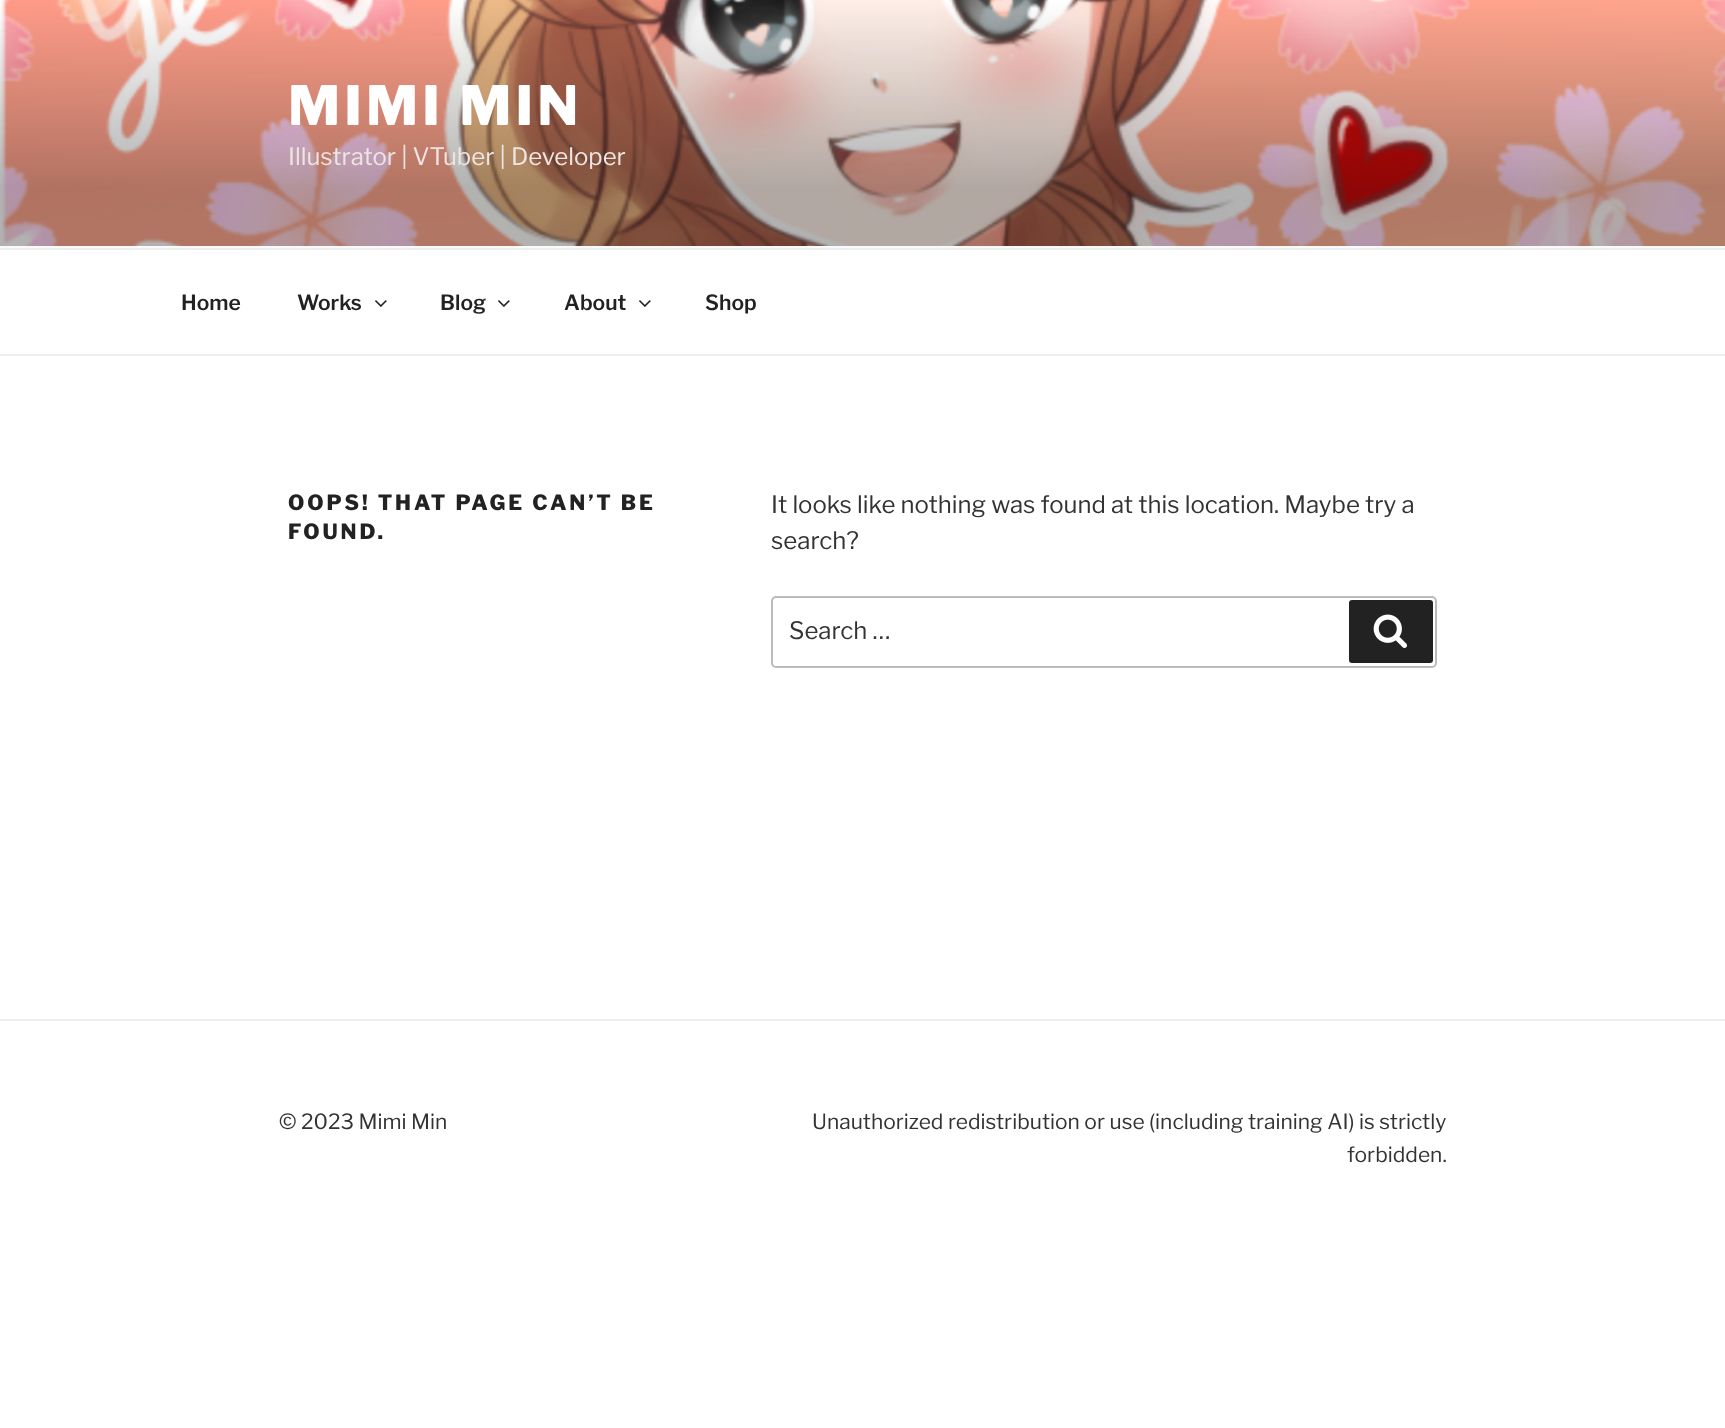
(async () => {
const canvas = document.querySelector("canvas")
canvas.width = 1725
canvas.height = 1428
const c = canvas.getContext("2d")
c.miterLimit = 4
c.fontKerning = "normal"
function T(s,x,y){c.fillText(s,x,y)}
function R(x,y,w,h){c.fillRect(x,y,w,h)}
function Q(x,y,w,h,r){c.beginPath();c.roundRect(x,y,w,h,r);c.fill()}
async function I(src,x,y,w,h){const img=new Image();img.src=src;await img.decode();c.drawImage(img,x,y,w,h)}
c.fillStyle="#fff"
R(0,0,1725,1428)
c.fillStyle="#fafafa"
R(0,246,1725,2)
await I("1.png",0,0,1725,246)
c.letterSpacing="4.25px"
c.font="100 54px Libre Franklin"
c.fillStyle="#fff"
T("MIMI MIN",288,125)
c.letterSpacing="0px"
c.font="100 24px 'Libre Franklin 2'"
c.fillStyle="#eee5e3"
T("Illustrator | VTuber | Developer",288,165)
c.fillStyle="#eee"
R(0,248,1725,2)
R(0,354,1725,2)
c.font="100 21px 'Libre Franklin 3'"
c.fillStyle="#222"
T("Home",181,310)
T("Works",297,310)
await I("2.png",375,300,12,7)
T("Blog",440,310)
await I("2.png",498,300,12,7)
T("About",564,310)
await I("2.png",639,300,12,7)
T("Shop",705,310)
c.letterSpacing="2.9px"
c.font="100 21px Libre Franklin"
T("OOPS! THAT PAGE CAN’T BE",288,510)
T("FOUND.",288,539)
c.letterSpacing="0px"
c.font="100 24px 'Libre Franklin 2'"
c.fillStyle="#333"
T("It looks like nothing was found at this location. Maybe try a",771,513)
T("search?",771,549)
c.beginPath()
c.roundRect(772,597,664,70,4)
c.strokeStyle="#bbb"
c.lineWidth=2
c.stroke()
T("Search …",789,639)
c.fillStyle="#222"
Q(1349,600,84,63,3)
await I("3.png",1373,614,34,34)
c.fillStyle="#eee"
R(0,1019,1725,2)
c.font="100 21px 'Libre Franklin 2'"
c.fillStyle="#333"
T("© 2023 Mimi Min",279,1129)
T("Unauthorized redistribution or use (including training AI) is strictly",812,1129)
T("forbidden.",1347,1162)
})()
